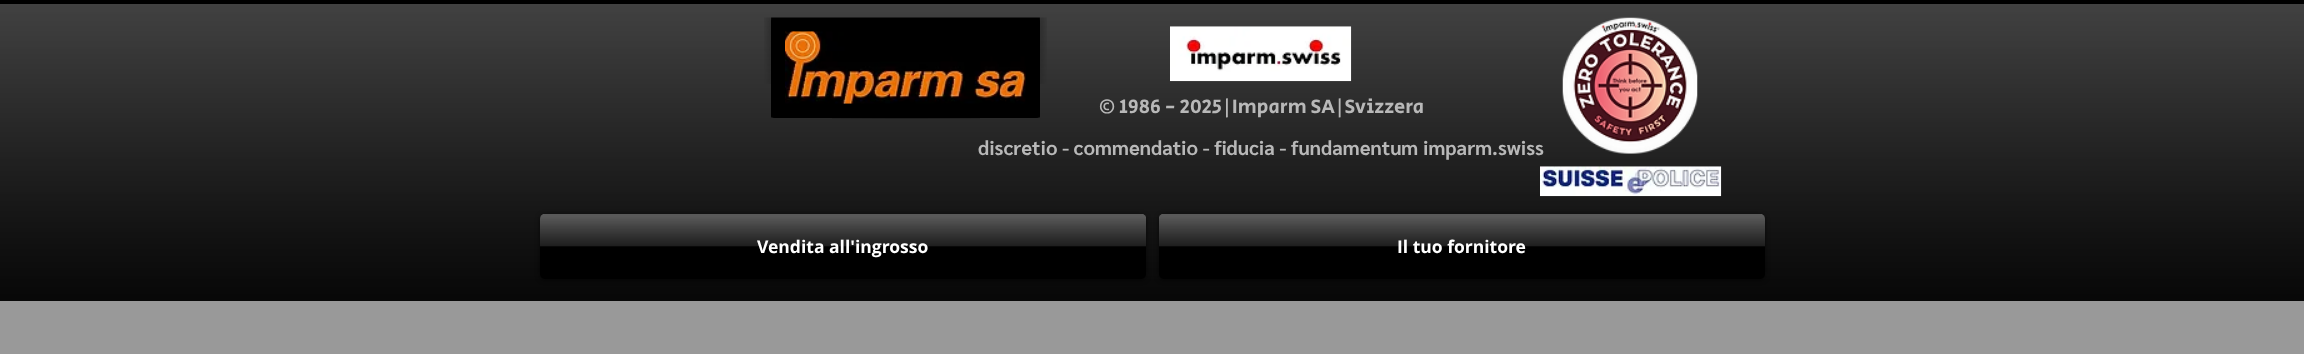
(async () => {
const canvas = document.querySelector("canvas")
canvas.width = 2304
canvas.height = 354
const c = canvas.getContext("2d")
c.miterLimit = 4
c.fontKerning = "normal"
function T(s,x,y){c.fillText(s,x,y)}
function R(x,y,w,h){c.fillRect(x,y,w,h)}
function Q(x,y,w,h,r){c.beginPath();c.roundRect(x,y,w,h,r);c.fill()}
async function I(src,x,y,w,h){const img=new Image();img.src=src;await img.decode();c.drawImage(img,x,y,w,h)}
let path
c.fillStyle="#000"
R(0,0,2304,354)
await I("1.png",0,4,2304,297)
await I("2.png",764,17,7,67)
Q(771,18,269,100,4)
path = new Path2D("M778 24.5h255v86h-255z")
c.strokeStyle="#000"
c.lineWidth=13.8
c.stroke(path)
await I("3.png",785,31,241,73)
await I("4.png",832,118,148,1)
await I("5.png",1040,17,7,67)
await I("6.png",1170,26,182,56)
await I("7.png",1562,17,136,137)
c.font="20px Secular One"
c.fillStyle="#b8b8b8"
T("© 1986 - 2025|Imparm SA|Svizzera",1099,113)
c.font="bold 20px Sarabun"
T("discretio - commendatio - fiducia - fundamentum imparm.swiss",978,155)
await I("8.png",1540,166,182,31)
c.fillStyle="#00000099"
c.filter="blur(2.5px)"
c.beginPath()
c.roundRect(540,215,606,65,5)
c.fill()
c.filter="none"
c.fillStyle="#000"
Q(540,214,606,65,5)
await I("9.png",540,214,606,33)
c.font="bold 17.5px Open Sans"
c.fillStyle="#fff"
T("Vendita all'ingrosso",757,253)
c.fillStyle="#00000099"
c.filter="blur(2.5px)"
c.beginPath()
c.roundRect(1159,215,606,65,5)
c.fill()
c.filter="none"
c.fillStyle="#000"
Q(1159,214,606,65,5)
await I("10.png",1159,214,606,33)
c.fillStyle="#fff"
T("Il tuo fornitore",1397,253)
c.fillStyle="#999"
R(0,301,2304,53)
})()
